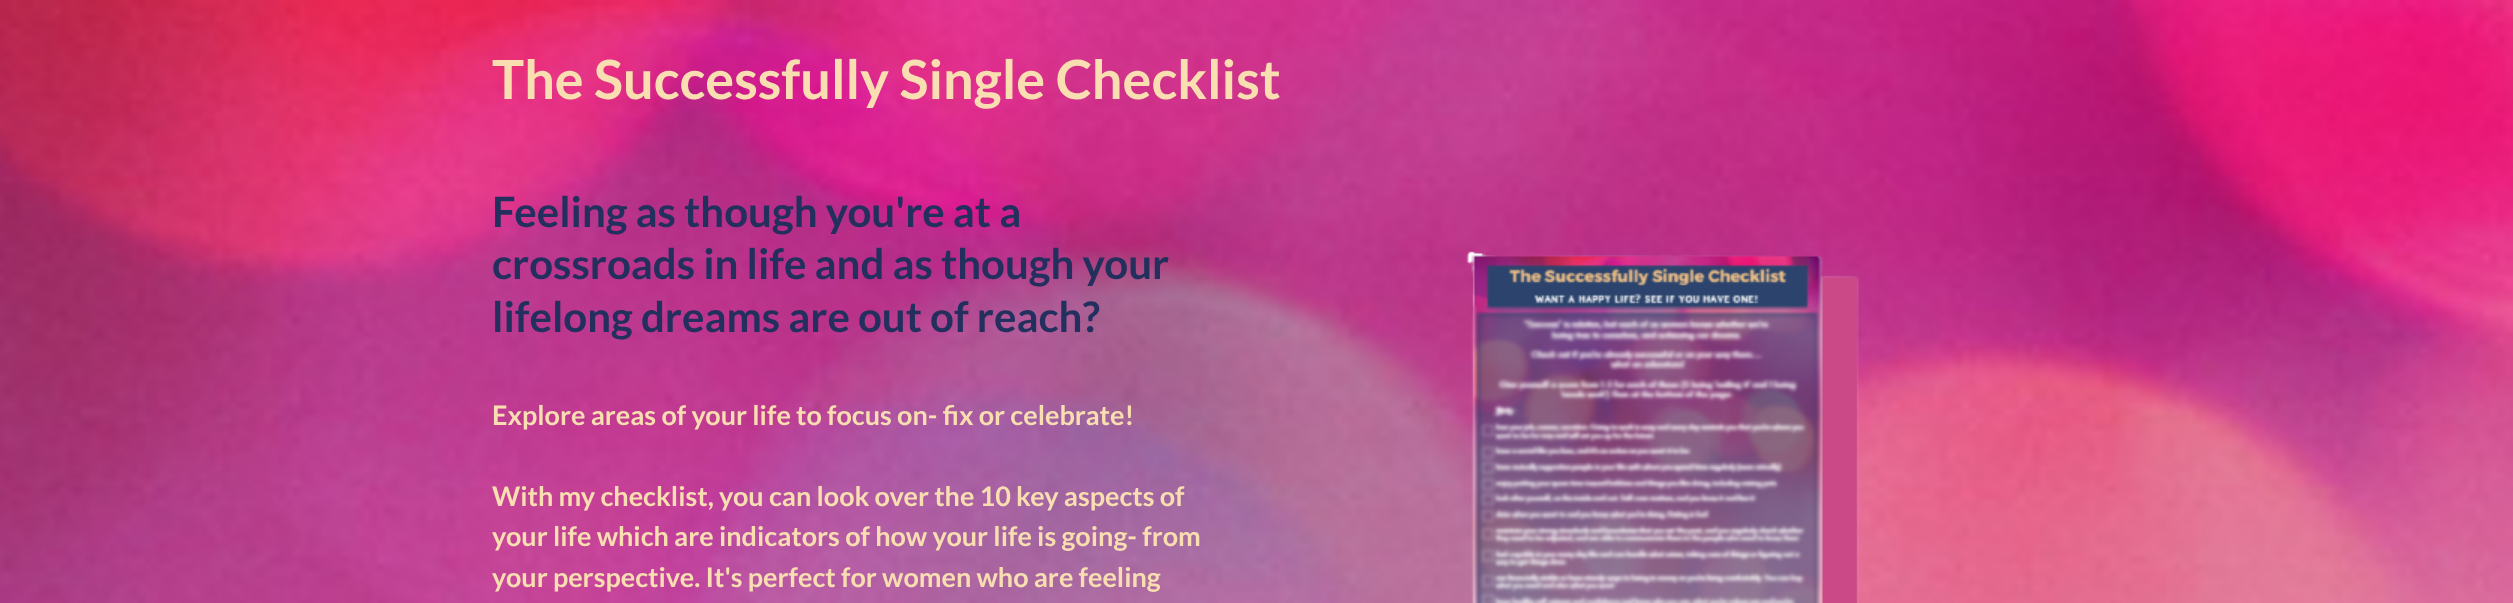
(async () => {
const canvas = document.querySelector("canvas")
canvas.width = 2513
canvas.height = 603
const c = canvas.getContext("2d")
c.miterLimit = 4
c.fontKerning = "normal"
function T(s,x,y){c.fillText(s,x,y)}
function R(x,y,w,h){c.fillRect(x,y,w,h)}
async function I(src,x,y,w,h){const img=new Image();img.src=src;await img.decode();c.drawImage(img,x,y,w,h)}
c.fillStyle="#fff"
R(0,0,2513,603)
await I("1.png",0,0,2513,603)
c.font="bold 54px Lato"
c.fillStyle="#f9deb1"
T("The Successfully Single Checklist",492,99)
c.font="bold 42px Lato"
c.fillStyle="#23305d"
T("Feeling as though you're at a",492,227)
T("crossroads in life and as though your",492,279)
T("lifelong dreams are out of reach?",492,332)
c.font="bold 27px Lato"
c.fillStyle="#f9deb1"
T("Explore areas of your life to focus on- fix or celebrate!",492,425)
T("With my checklist, you can look over the 10 key aspects of",492,506)
T("your life which are indicators of how your life is going- from",492,546)
T("your perspective. It's perfect for women who are feeling",492,587)
await I("2.png",1466,251,393,352)
})()
